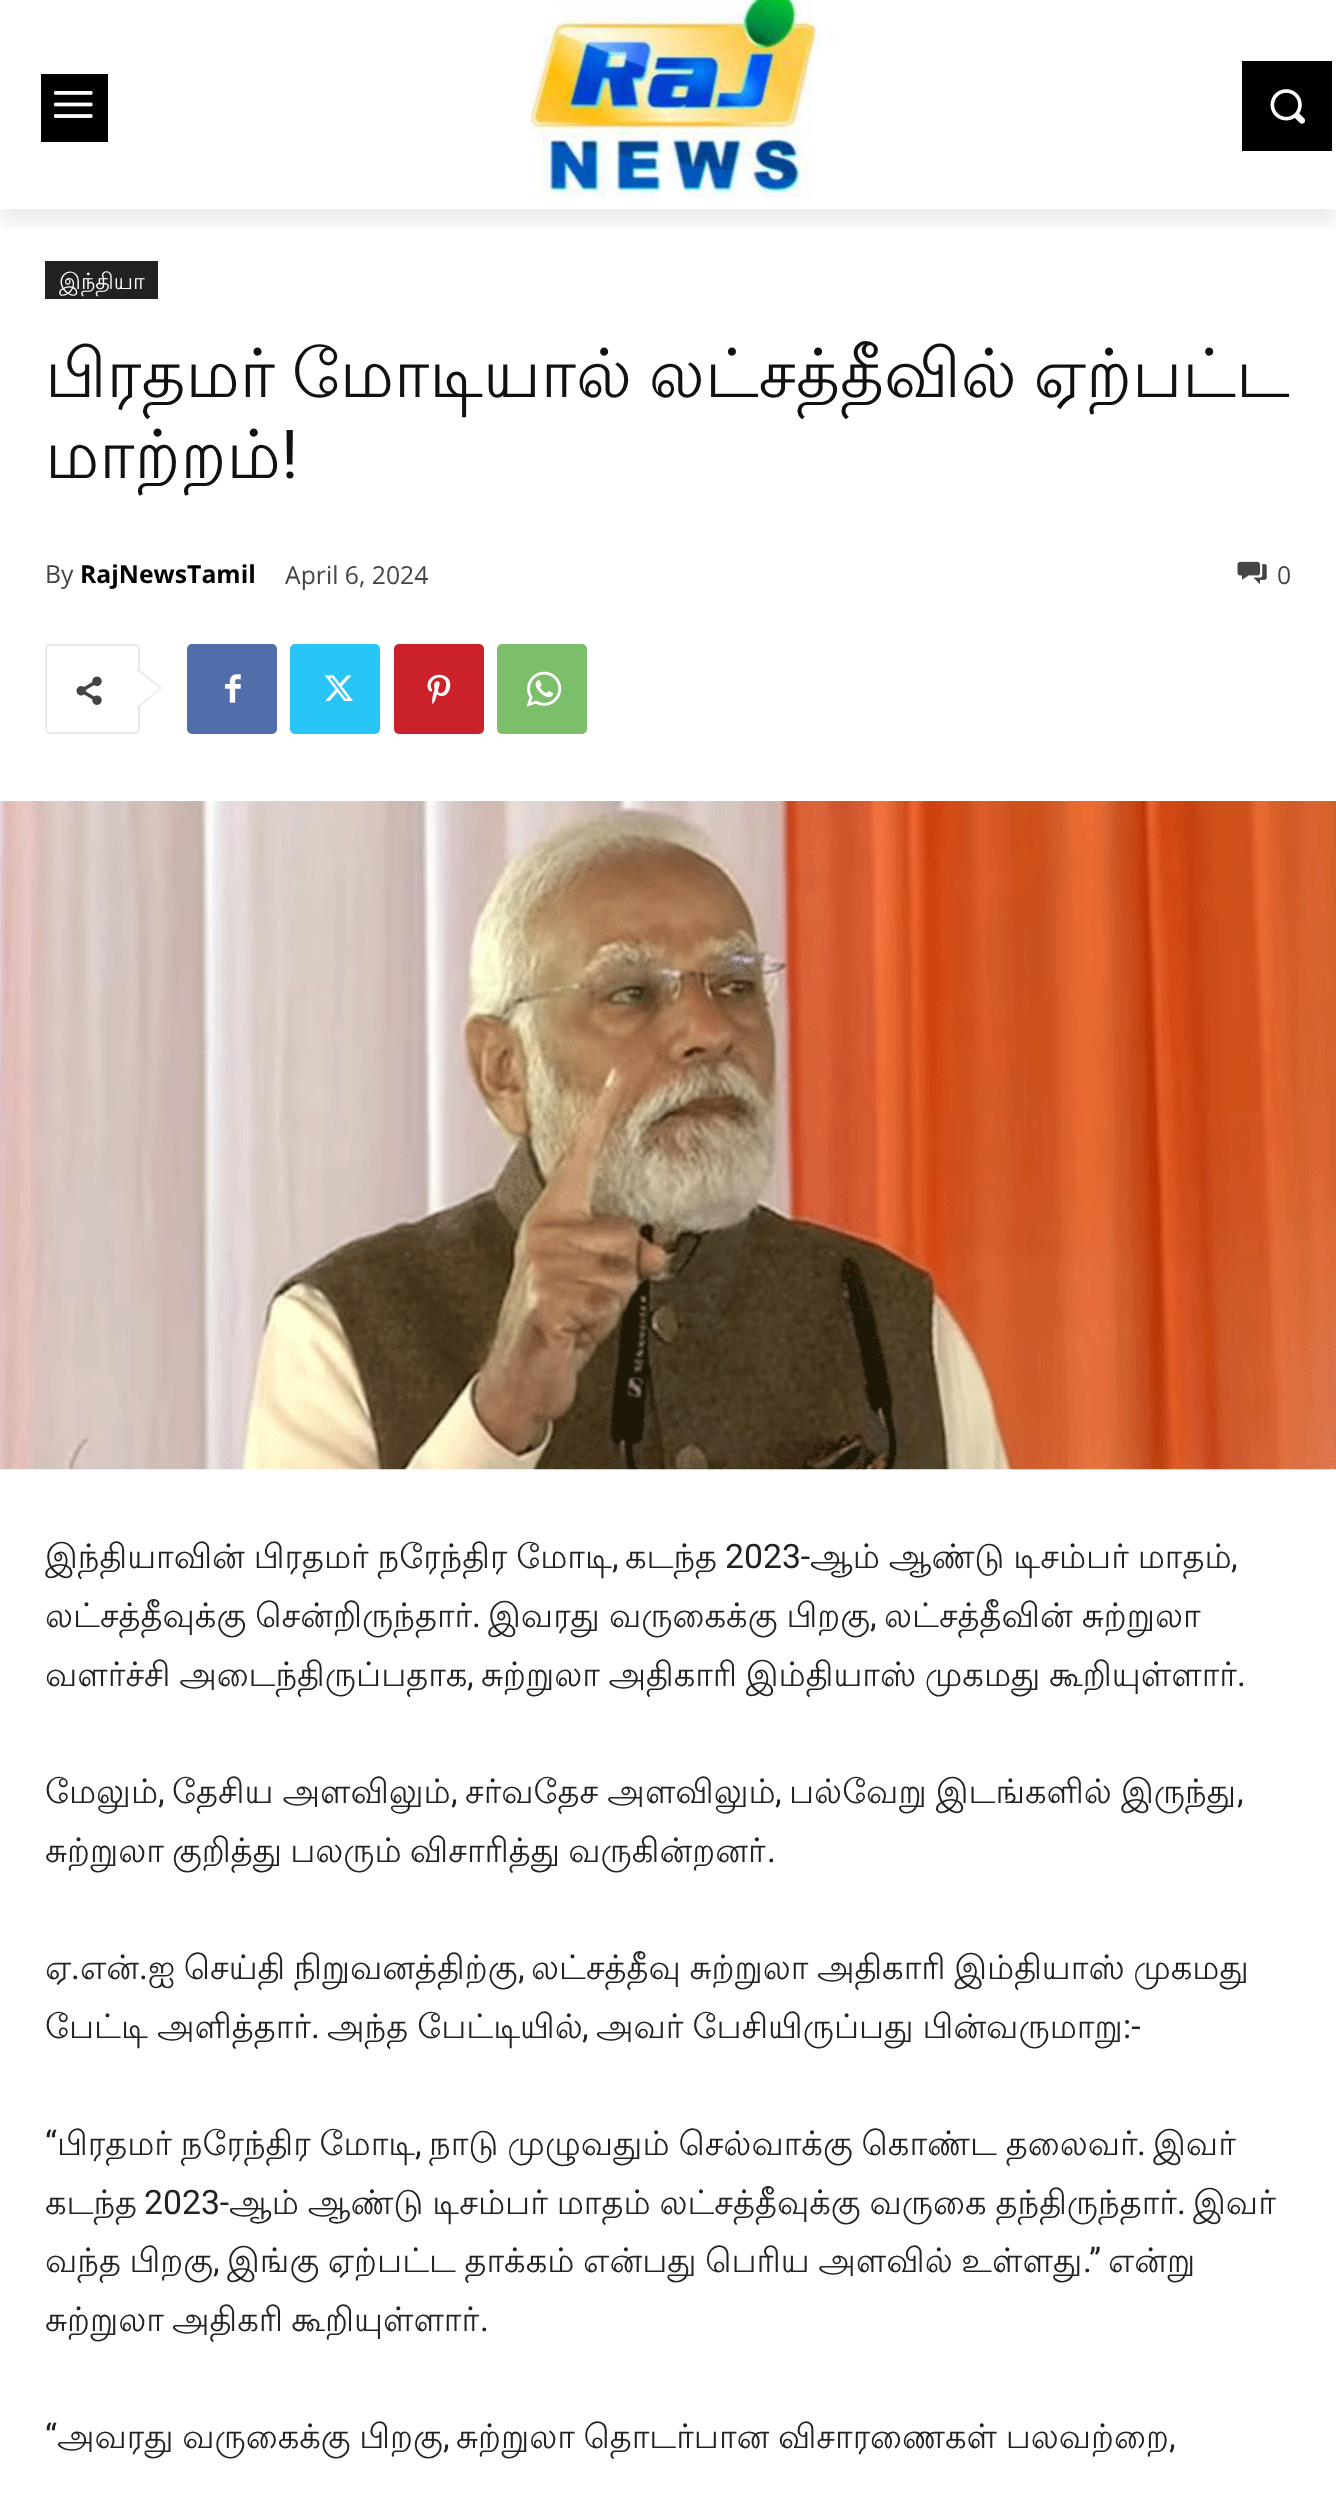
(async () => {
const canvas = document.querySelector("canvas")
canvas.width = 1336
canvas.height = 2502
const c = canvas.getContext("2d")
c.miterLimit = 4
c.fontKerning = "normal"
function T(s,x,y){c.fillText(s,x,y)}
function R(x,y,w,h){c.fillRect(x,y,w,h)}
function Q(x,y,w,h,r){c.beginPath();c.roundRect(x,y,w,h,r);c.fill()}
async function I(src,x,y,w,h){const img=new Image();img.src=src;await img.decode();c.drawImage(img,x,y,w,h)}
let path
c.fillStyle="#fff"
R(0,0,1336,2502)
c.fillStyle="#000"
R(41,74,67,68)
await I("1.png",54,91,39,27)
await I("2.png",529,0,305,198)
R(1242,61,90,90)
await I("3.png",1270,89,36,35)
c.save()
c.beginPath()
c.rect(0,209,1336,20)
c.clip()
c.fillStyle="#00000014"
c.filter="blur(9px)"
c.beginPath()
c.rect(0,14,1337,209)
c.fill()
c.filter="none"
c.restore()
c.fillStyle="#222"
R(45,261,113,38)
c.font="22.5px Lohit Tamil"
c.fillStyle="#fff"
T("இந்தியா",59,289)
c.wordSpacing="-3.5px"
c.font="67.5px Lohit Tamil"
c.fillStyle="#111"
T("பிரதமர் மோடியால் லட்சத்தீவில் ஏற்பட்ட",45,397)
c.wordSpacing="0px"
T("மாற்றம்",45,478)
c.font="67.5px Roboto"
T("!",281,478)
c.font="24.75px Open Sans"
c.fillStyle="#444"
T("By",45,583)
c.font="bold 24.75px Open Sans"
c.fillStyle="#000"
T("RajNewsTamil",80,583)
c.font="24.75px Open Sans"
c.fillStyle="#444"
T("April 6, 2024",285,584)
await I("4.png",1237,561,30,24)
T("0",1277,584)
c.beginPath()
c.roundRect(46,645,93,88,4)
c.strokeStyle="#e9e9e9"
c.lineWidth=2
c.stroke()
c.fillStyle="#e9e9e9"
path = new Path2D("M137 709v-41l25 20z")
c.fill(path)
await I("5.png",76,676,26,29)
c.fillStyle="#fff"
path = new Path2D("M137 706.5v-36l23 18z")
c.fill(path)
c.fillStyle="#516eab"
Q(187,644,90,90,5)
await I("6.png",225,674,16,29)
c.fillStyle="#29c5f6"
Q(290,644,90,90,5)
await I("7.png",324,675,29,26)
c.fillStyle="#ca212a"
Q(394,644,90,90,5)
await I("8.png",427,674,24,30)
c.fillStyle="#7bbf6a"
Q(497,644,90,90,5)
await I("9.png",526,671,36,36)
await I("10.png",0,801,1336,669)
c.wordSpacing="-1.25px"
c.font="33.75px Lohit Tamil"
c.fillStyle="#222"
T("இந்தியாவின் பிரதமர் நரேந்திர மோடி",45,1568)
c.wordSpacing="0px"
c.font="33.75px Roboto"
T(",",612,1568)
c.font="33.75px Lohit Tamil"
T("கடந்த",625,1568)
c.font="33.75px Roboto"
T("2023-",725,1568)
c.wordSpacing="-1.25px"
c.font="33.75px Lohit Tamil"
T("ஆம் ஆண்டு டிசம்பர் மாதம்",810,1568)
c.wordSpacing="0px"
c.font="33.75px Roboto"
T(",",1231,1568)
c.wordSpacing="-1px"
c.font="33.75px Lohit Tamil"
T("லட்சத்தீவுக்கு சென்றிருந்தார்",45,1627)
c.wordSpacing="0px"
c.font="33.75px Roboto"
T(".",472,1627)
c.wordSpacing="-1px"
c.font="33.75px Lohit Tamil"
T("இவரது வருகைக்கு பிறகு",488,1627)
c.wordSpacing="0px"
c.font="33.75px Roboto"
T(",",870,1627)
c.wordSpacing="-1px"
c.font="33.75px Lohit Tamil"
T("லட்சத்தீவின் சுற்றுலா",884,1627)
c.wordSpacing="-1.5px"
T("வளர்ச்சி அடைந்திருப்பதாக",45,1686)
c.wordSpacing="0px"
c.font="33.75px Roboto"
T(",",467,1686)
c.wordSpacing="-1.5px"
c.font="33.75px Lohit Tamil"
T("சுற்றுலா அதிகாரி இம்தியாஸ் முகமது கூறியுள்ளார்",481,1686)
c.wordSpacing="0px"
c.font="33.75px Roboto"
T(".",1237,1686)
c.font="33.75px Lohit Tamil"
T("மேலும்",45,1803)
c.font="33.75px Roboto"
T(",",158,1803)
c.wordSpacing="-1px"
c.font="33.75px Lohit Tamil"
T("தேசிய அளவிலும்",172,1803)
c.wordSpacing="0px"
c.font="33.75px Roboto"
T(",",451,1803)
c.wordSpacing="-1px"
c.font="33.75px Lohit Tamil"
T("சர்வதேச அளவிலும்",465,1803)
c.wordSpacing="0px"
c.font="33.75px Roboto"
T(",",775,1803)
c.wordSpacing="-1px"
c.font="33.75px Lohit Tamil"
T("பல்வேறு இடங்களில் இருந்து",789,1803)
c.wordSpacing="0px"
c.font="33.75px Roboto"
T(",",1237,1803)
c.wordSpacing="-2px"
c.font="33.75px Lohit Tamil"
T("சுற்றுலா குறித்து பலரும் விசாரித்து வருகின்றனர்",45,1862)
c.wordSpacing="0px"
c.font="33.75px Roboto"
T(".",767,1862)
c.font="33.75px Lohit Tamil"
T("ஏ",45,1979)
c.font="33.75px Roboto"
T(".",71,1979)
c.font="33.75px Lohit Tamil"
T("என்",80,1979)
c.font="33.75px Roboto"
T(".",139,1979)
c.wordSpacing="-1.5px"
c.font="33.75px Lohit Tamil"
T("ஐ செய்தி நிறுவனத்திற்கு",148,1979)
c.wordSpacing="0px"
c.font="33.75px Roboto"
T(",",518,1979)
c.wordSpacing="-1.5px"
c.font="33.75px Lohit Tamil"
T("லட்சத்தீவு சுற்றுலா அதிகாரி இம்தியாஸ் முகமது",531,1979)
c.wordSpacing="-1px"
T("பேட்டி அளித்தார்",45,2038)
c.wordSpacing="0px"
c.font="33.75px Roboto"
T(".",311,2038)
c.wordSpacing="-1px"
c.font="33.75px Lohit Tamil"
T("அந்த பேட்டியில்",327,2038)
c.wordSpacing="0px"
c.font="33.75px Roboto"
T(",",582,2038)
c.wordSpacing="-1px"
c.font="33.75px Lohit Tamil"
T("அவர் பேசியிருப்பது பின்வருமாறு",596,2038)
c.wordSpacing="0px"
c.font="33.75px Roboto"
T(":-",1123,2038)
T("“",45,2155)
c.wordSpacing="-1.25px"
c.font="33.75px Lohit Tamil"
T("பிரதமர் நரேந்திர மோடி",57,2155)
T("நாடு முழுவதும் செல்வாக்கு கொண்ட தலைவர்",429,2155)
c.wordSpacing="0px"
T("இவர்",1153,2155)
c.font="33.75px Roboto"
T(",",415,2155)
T(".",1137,2155)
c.font="33.75px Lohit Tamil"
T("கடந்த",45,2214)
c.font="33.75px Roboto"
T("2023-",144,2214)
c.wordSpacing="-1.25px"
c.font="33.75px Lohit Tamil"
T("ஆம் ஆண்டு டிசம்பர் மாதம் லட்சத்தீவுக்கு வருகை தந்திருந்தார்",229,2214)
c.wordSpacing="0px"
c.font="33.75px Roboto"
T(".",1177,2214)
c.font="33.75px Lohit Tamil"
T("இவர்",1193,2214)
c.wordSpacing="-1.5px"
T("வந்த பிறகு",45,2272)
c.wordSpacing="0px"
c.font="33.75px Roboto"
T(",",213,2272)
c.wordSpacing="-1.5px"
c.font="33.75px Lohit Tamil"
T("இங்கு ஏற்பட்ட தாக்கம் என்பது பெரிய அளவில் உள்ளது",227,2272)
c.wordSpacing="0px"
c.font="33.75px Roboto"
T(".”",1083,2272)
c.font="33.75px Lohit Tamil"
T("என்று",1108,2272)
c.wordSpacing="-2px"
T("சுற்றுலா அதிகரி கூறியுள்ளார்",45,2331)
c.wordSpacing="0px"
c.font="33.75px Roboto"
T(".",480,2331)
T("“",45,2448)
c.wordSpacing="-1.5px"
c.font="33.75px Lohit Tamil"
T("அவரது வருகைக்கு பிறகு",57,2448)
T("சுற்றுலா தொடர்பான விசாரணைகள் பலவற்றை",456,2448)
c.wordSpacing="0px"
c.font="33.75px Roboto"
T(",",443,2448)
T(",",1169,2448)
})()
